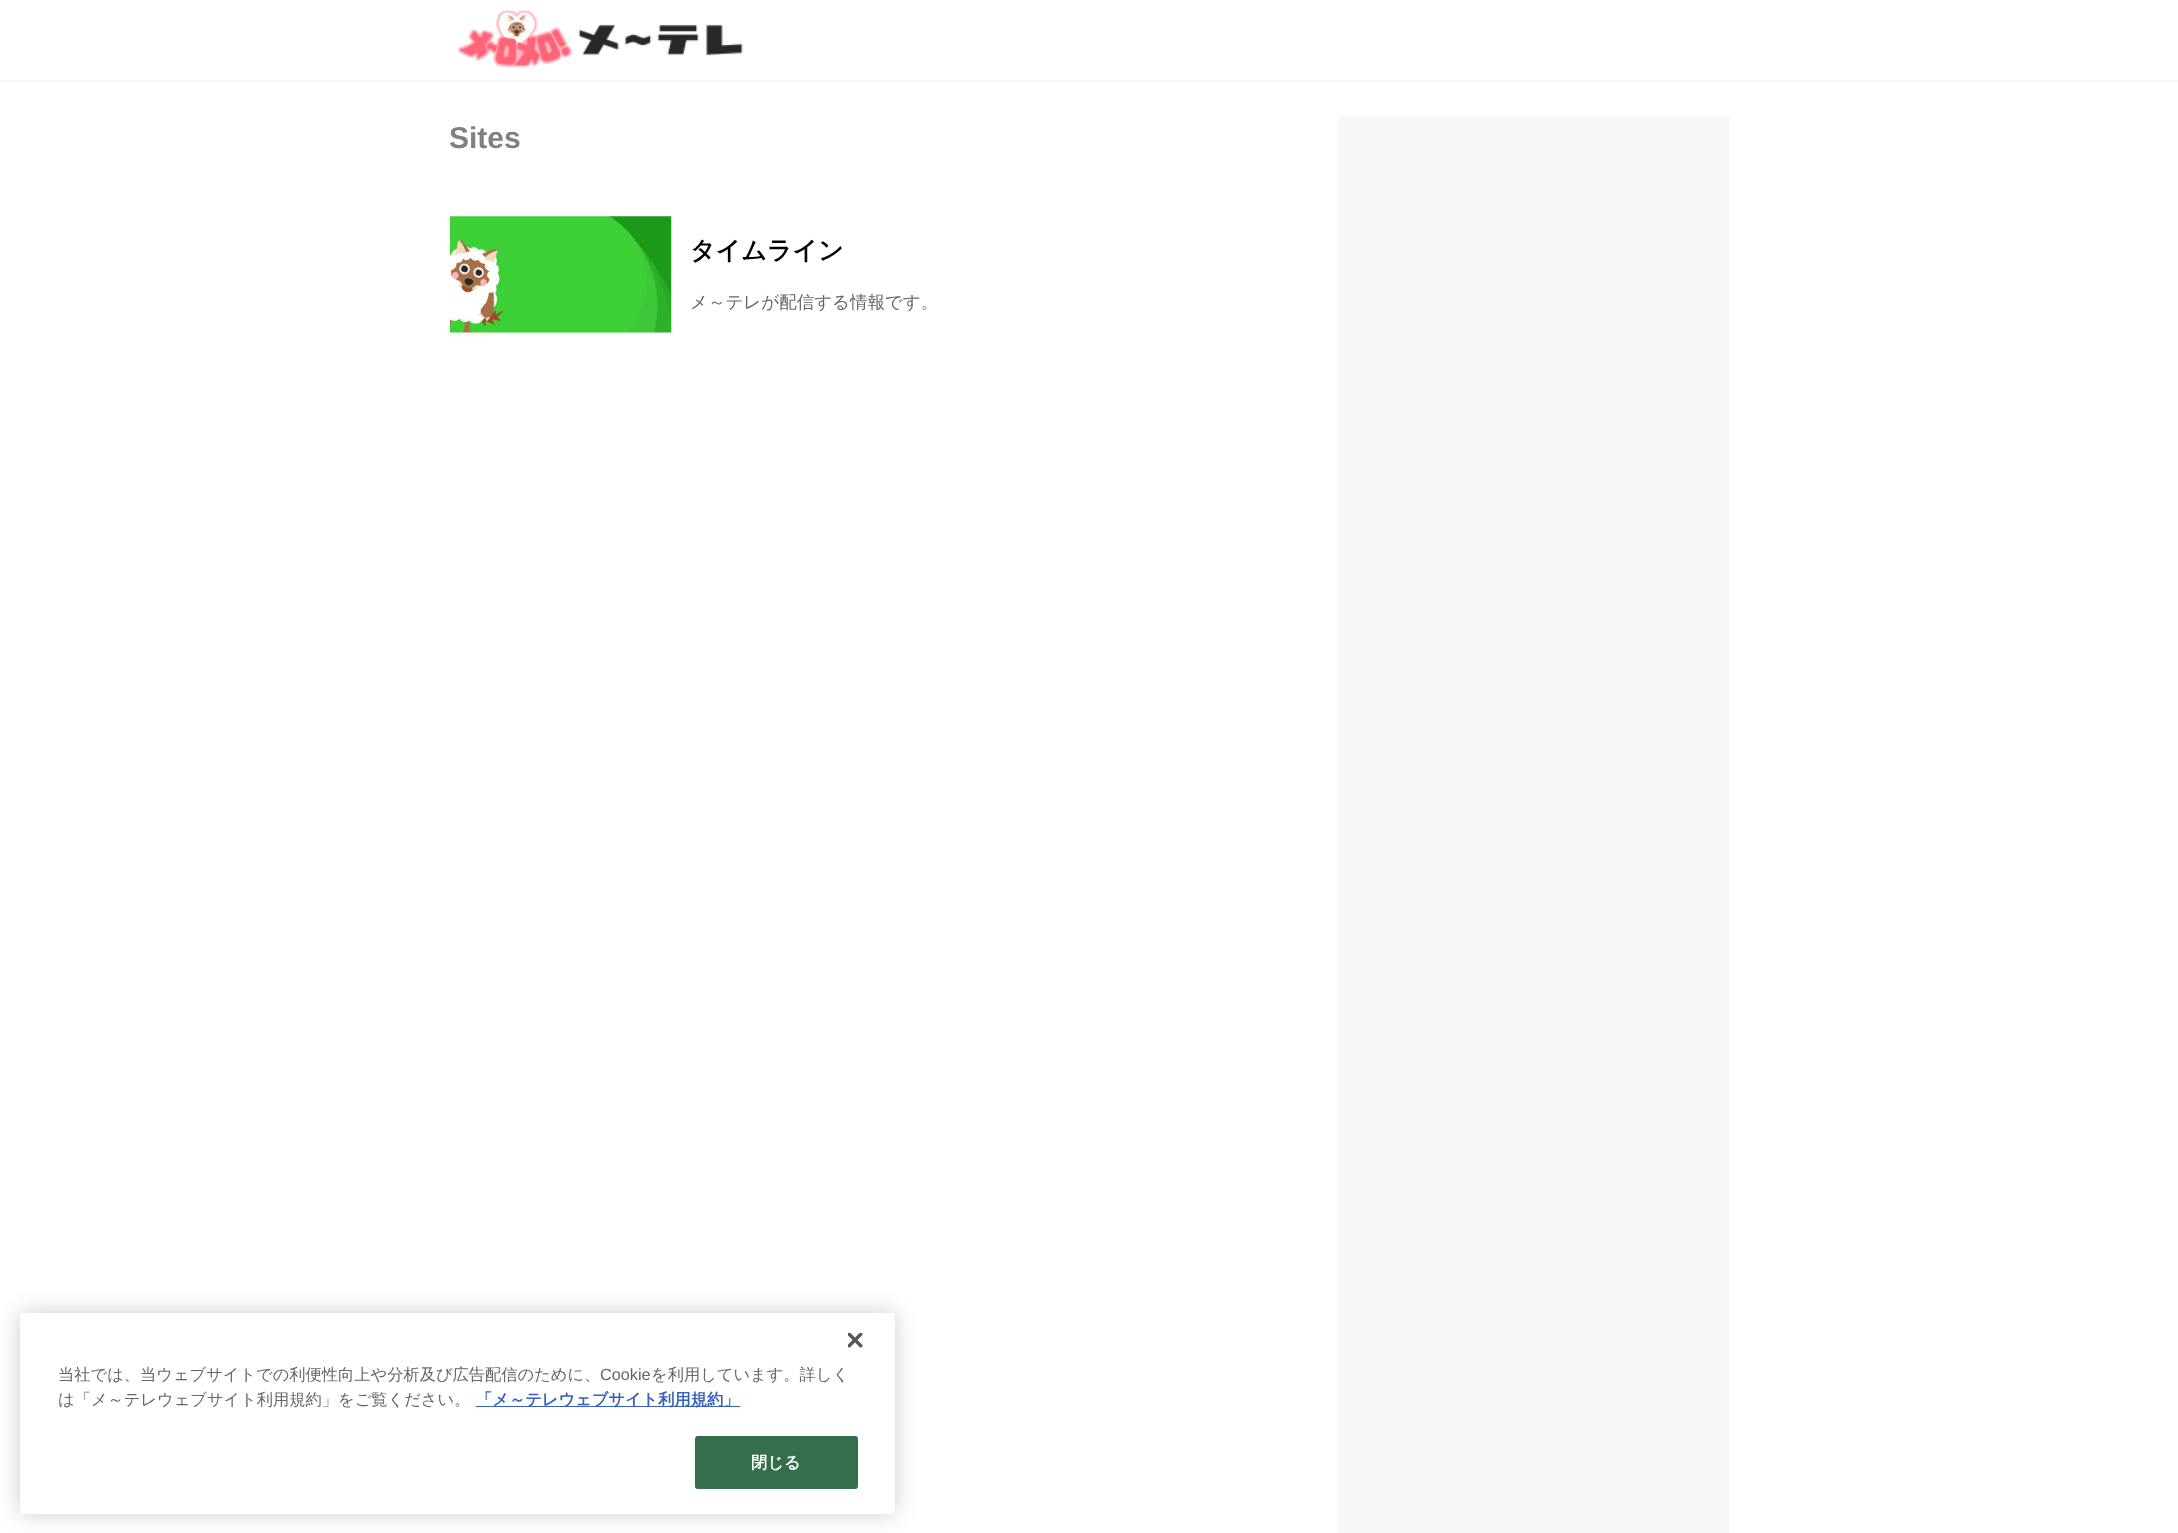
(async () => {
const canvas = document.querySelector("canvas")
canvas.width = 2178
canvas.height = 1533
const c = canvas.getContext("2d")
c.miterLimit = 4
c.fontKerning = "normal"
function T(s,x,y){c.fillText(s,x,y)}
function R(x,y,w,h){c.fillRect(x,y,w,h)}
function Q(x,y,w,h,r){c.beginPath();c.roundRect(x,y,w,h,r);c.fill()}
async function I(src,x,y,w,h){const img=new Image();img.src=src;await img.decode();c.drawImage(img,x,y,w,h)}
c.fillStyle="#fff"
R(0,0,2178,1533)
await I("1.png",457,10,286,58)
c.fillStyle="#f8f8f8"
R(0,80,2178,3)
c.font="bold 30px Liberation Sans"
c.fillStyle="#808080"
T("Sites",449,148)
await I("2.png",450,216,222,117)
c.font="bold 25px WenQuanYi Zen Hei"
c.fillStyle="#000"
T("タイムライン",690,259)
c.font="500 17.5px WenQuanYi Zen Hei"
c.fillStyle="#666"
T("メ～テレが配信する情報です。",690,308)
c.fillStyle="#f8f8f8"
R(1338,116,392,1417)
c.fillStyle="#00000033"
c.filter="blur(11px)"
c.beginPath()
c.roundRect(20,1313,875,201,3)
c.fill()
c.filter="none"
c.fillStyle="#fff"
Q(20,1313,875,201,3)
await I("3.png",848,1333,15,15)
c.font="500 16.25px WenQuanYi Zen Hei"
c.fillStyle="#666"
T("当社では、当ウェブサイトでの利便性向上や分析及び広告配信のために、",58,1380)
c.font="16.25px Liberation Sans"
T("Cookie",600,1380)
c.font="500 16.25px WenQuanYi Zen Hei"
T("を利用しています。詳しく",651,1380)
T("は「メ～テレウェブサイト利用規約」をご覧ください。",58,1405)
c.fillStyle="#3860be"
R(476,1406,264,1)
c.font="bold 16.25px WenQuanYi Zen Hei"
T("「メ～テレウェブサイト利用規約」",476,1405)
c.fillStyle="#346e4a"
c.beginPath()
c.roundRect(695.5,1436.5,162,52,2)
c.fill()
c.strokeStyle="#346e4a"
c.stroke()
c.fillStyle="#fff"
T("閉じる",751,1468)
})()
